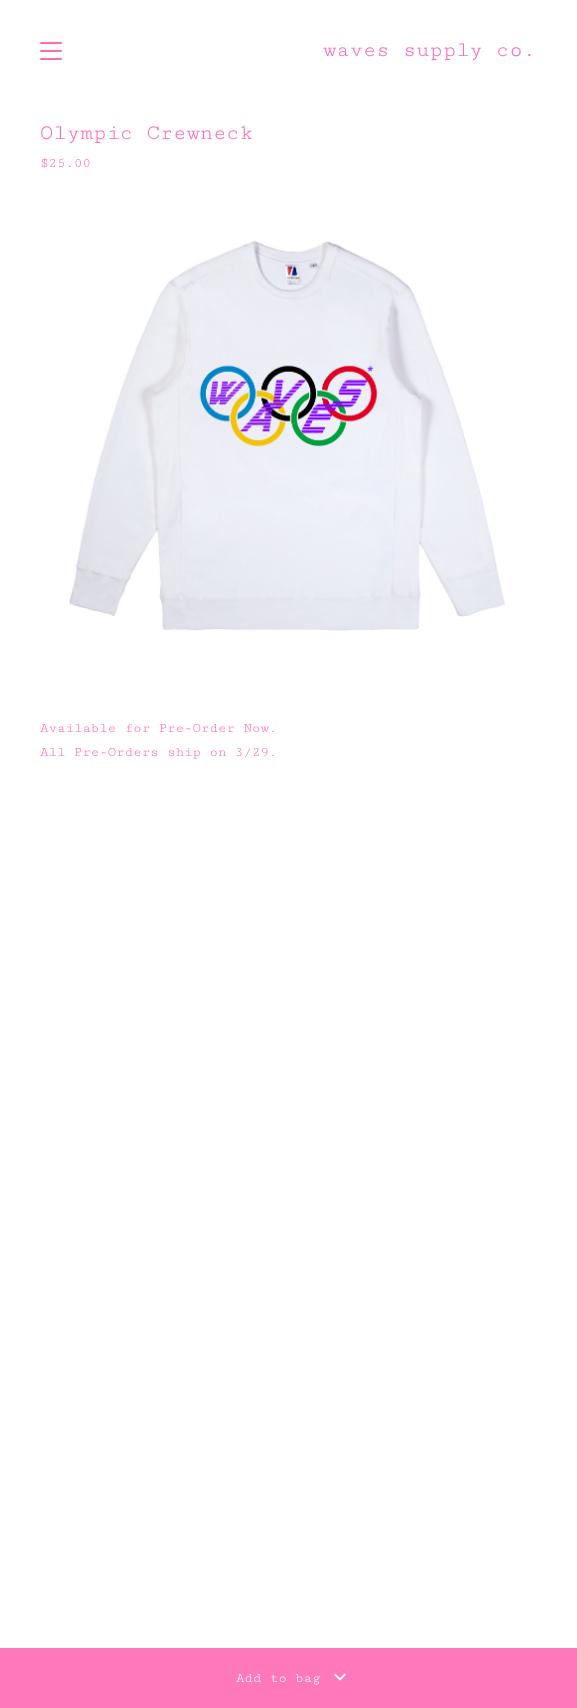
(async () => {
const canvas = document.querySelector("canvas")
canvas.width = 577
canvas.height = 1708
const c = canvas.getContext("2d")
c.miterLimit = 4
c.fontKerning = "normal"
function T(s,x,y){c.fillText(s,x,y)}
function R(x,y,w,h){c.fillRect(x,y,w,h)}
function Q(x,y,w,h,r){c.beginPath();c.roundRect(x,y,w,h,r);c.fill()}
async function I(src,x,y,w,h){const img=new Image();img.src=src;await img.decode();c.drawImage(img,x,y,w,h)}
c.fillStyle="#fff"
R(0,0,577,1708)
c.fillStyle="#ff69b4"
Q(40,42,22,2,1)
Q(40,50,22,2,1)
Q(40,58,22,2,1)
c.font="22px Cutive Mono"
T("waves supply co.",323,56)
T("Olympic Crewneck",40,139)
c.font="14px Cutive Mono"
T("$25.00",40,167)
await I("1.png",69,240,436,391)
T("Available for Pre-Order Now.",40,732)
T("All Pre-Orders ship on 3/29.",40,756)
c.fillStyle="#ff78bc"
R(0,1648,577,60)
c.fillStyle="#fff"
T("Add to bag",236,1682)
await I("2.png",334,1673,12,8)
})()
